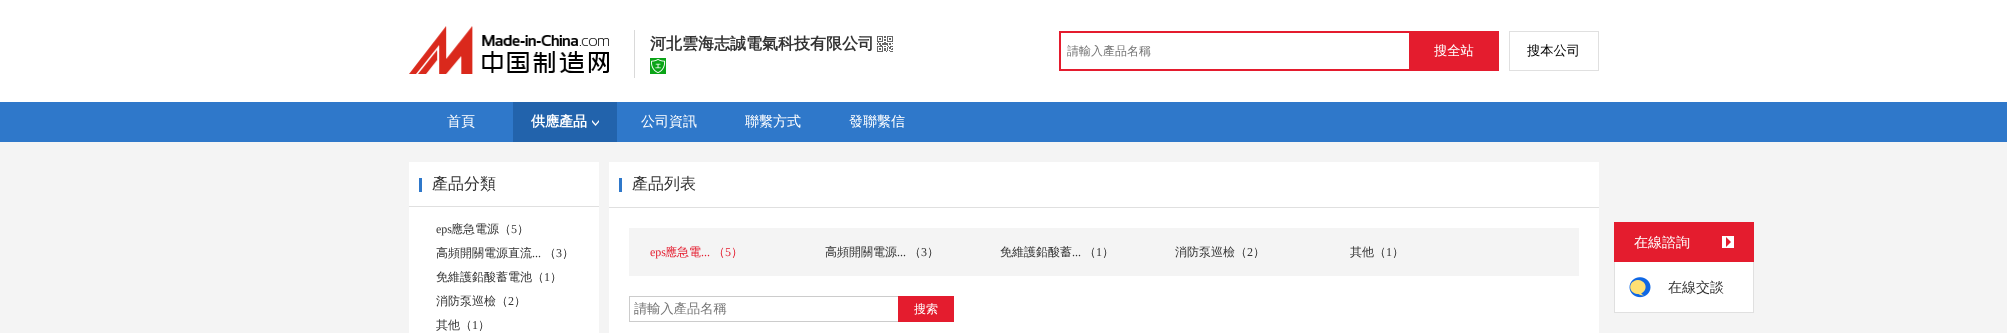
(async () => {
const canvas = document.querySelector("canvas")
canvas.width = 2007
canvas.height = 333
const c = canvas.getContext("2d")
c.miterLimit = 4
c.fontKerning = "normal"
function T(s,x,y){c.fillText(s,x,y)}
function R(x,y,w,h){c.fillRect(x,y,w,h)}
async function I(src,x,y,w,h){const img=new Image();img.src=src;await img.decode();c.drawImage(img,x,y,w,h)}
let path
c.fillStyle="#f4f4f4"
R(0,0,2007,333)
c.fillStyle="#fff"
R(0,0,2007,102)
await I("1.png",409,26,200,48)
c.fillStyle="#d9d9d9"
R(634,30,1,48)
c.font="bold 16px WenQuanYi Zen Hei"
c.fillStyle="#333"
T("河北雲海志誠電氣科技有限公司",650,49)
await I("2.png",877,36,16,16)
await I("3.png",650,58,16,16)
c.fillStyle="#e41c2e"
R(1059,31,350,2)
R(1059,69,350,2)
R(1059,31,2,40)
c.save()
c.beginPath()
c.rect(1067,43,333,17)
c.clip()
c.font="500 12px WenQuanYi Zen Hei"
c.fillStyle="#757575"
T("請輸入產品名稱",1067,55)
c.restore()
R(1409,31,90,40)
c.font="500 13.25px WenQuanYi Zen Hei"
c.fillStyle="#fff"
T("搜全站",1434,55)
c.strokeStyle="#e0e0e0"
c.strokeRect(1509.5,31.5,89,39)
c.fillStyle="#000"
T("搜本公司",1527,55)
c.fillStyle="#2f78ca"
R(0,102,2007,40)
c.font="500 14px WenQuanYi Zen Hei"
c.fillStyle="#fff"
T("首頁",447,126)
c.fillStyle="#2263ac"
R(513,102,104,40)
c.font="bold 14px WenQuanYi Zen Hei"
c.fillStyle="#fff"
T("供應產品",531,126)
await I("4.png",592,120,7,6)
c.font="500 14px WenQuanYi Zen Hei"
T("公司資訊",641,126)
T("聯繫方式",745,126)
T("發聯繫信",849,126)
R(409,162,190,171)
c.fillStyle="#e0e0e0"
R(409,206,190,1)
c.fillStyle="#2f78ca"
R(419,178,3,14)
c.font="500 16px WenQuanYi Zen Hei"
c.fillStyle="#333"
T("產品分類",432,189)
c.font="12px Liberation Serif"
T("eps",436,233)
c.font="500 12px WenQuanYi Zen Hei"
T("應急電源（",451,233)
c.font="12px Liberation Serif"
T("5",511,233)
c.font="500 12px WenQuanYi Zen Hei"
T("）",517,233)
T("高頻開關電源直流",436,257)
c.font="12px Liberation Serif"
T("...",532,257)
c.font="500 12px WenQuanYi Zen Hei"
T("（",544,257)
c.font="12px Liberation Serif"
T("3",556,257)
c.font="500 12px WenQuanYi Zen Hei"
T("）",562,257)
T("免維護鉛酸蓄電池（",436,281)
c.font="12px Liberation Serif"
T("1",544,281)
c.font="500 12px WenQuanYi Zen Hei"
T("）",550,281)
T("消防泵巡檢（",436,305)
c.font="12px Liberation Serif"
T("2",508,305)
c.font="500 12px WenQuanYi Zen Hei"
T("）",514,305)
T("其他（",436,329)
c.font="12px Liberation Serif"
T("1",472,329)
c.font="500 12px WenQuanYi Zen Hei"
T("）",478,329)
c.fillStyle="#fff"
R(609,162,990,171)
c.fillStyle="#e0e0e0"
R(609,207,990,1)
c.fillStyle="#2f78ca"
R(619,178,3,14)
c.font="500 16px WenQuanYi Zen Hei"
c.fillStyle="#333"
T("產品列表",632,189)
c.fillStyle="#f4f4f4"
R(629,228,950,48)
c.font="12px Liberation Serif"
c.fillStyle="#e41c2e"
T("eps",650,256)
c.font="500 12px WenQuanYi Zen Hei"
T("應急電",665,256)
c.font="12px Liberation Serif"
T("...",701,256)
c.font="500 12px WenQuanYi Zen Hei"
T("（",713,256)
c.font="12px Liberation Serif"
T("5",725,256)
c.font="500 12px WenQuanYi Zen Hei"
T("）",731,256)
c.fillStyle="#333"
T("高頻開關電源",825,256)
c.font="12px Liberation Serif"
T("...",897,256)
c.font="500 12px WenQuanYi Zen Hei"
T("（",909,256)
c.font="12px Liberation Serif"
T("3",921,256)
c.font="500 12px WenQuanYi Zen Hei"
T("）",927,256)
T("免維護鉛酸蓄",1000,256)
c.font="12px Liberation Serif"
T("...",1072,256)
c.font="500 12px WenQuanYi Zen Hei"
T("（",1084,256)
c.font="12px Liberation Serif"
T("1",1096,256)
c.font="500 12px WenQuanYi Zen Hei"
T("）",1102,256)
T("消防泵巡檢（",1175,256)
c.font="12px Liberation Serif"
T("2",1247,256)
c.font="500 12px WenQuanYi Zen Hei"
T("）",1253,256)
T("其他（",1350,256)
c.font="12px Liberation Serif"
T("1",1386,256)
c.font="500 12px WenQuanYi Zen Hei"
T("）",1392,256)
c.fillStyle="#ccc"
R(629,296,269,1)
R(629,321,269,1)
R(629,296,1,26)
c.save()
c.beginPath()
c.rect(634,300,260,18)
c.clip()
c.font="500 13.25px WenQuanYi Zen Hei"
c.fillStyle="#757575"
T("請輸入產品名稱",634,313)
c.restore()
c.fillStyle="#e41c2e"
R(898,296,56,26)
c.fillStyle="#fff"
T("搜索",914,313)
c.fillStyle="#e41c2e"
R(1614,222,140,40)
c.font="500 14px WenQuanYi Zen Hei"
c.fillStyle="#fff"
T("在線諮詢",1634,247)
R(1722,236,12,12)
c.fillStyle="#e41c2e"
path = new Path2D("M1726 247v-10l5 5z")
c.fill(path)
c.fillStyle="#fff"
R(1615,262,138,50)
c.fillStyle="#e0e0e0"
R(1753,262,1,51)
R(1614,312,140,1)
R(1614,262,1,51)
await I("5.png",1629,277,22,21)
c.fillStyle="#333"
T("在線交談",1668,292)
})()
